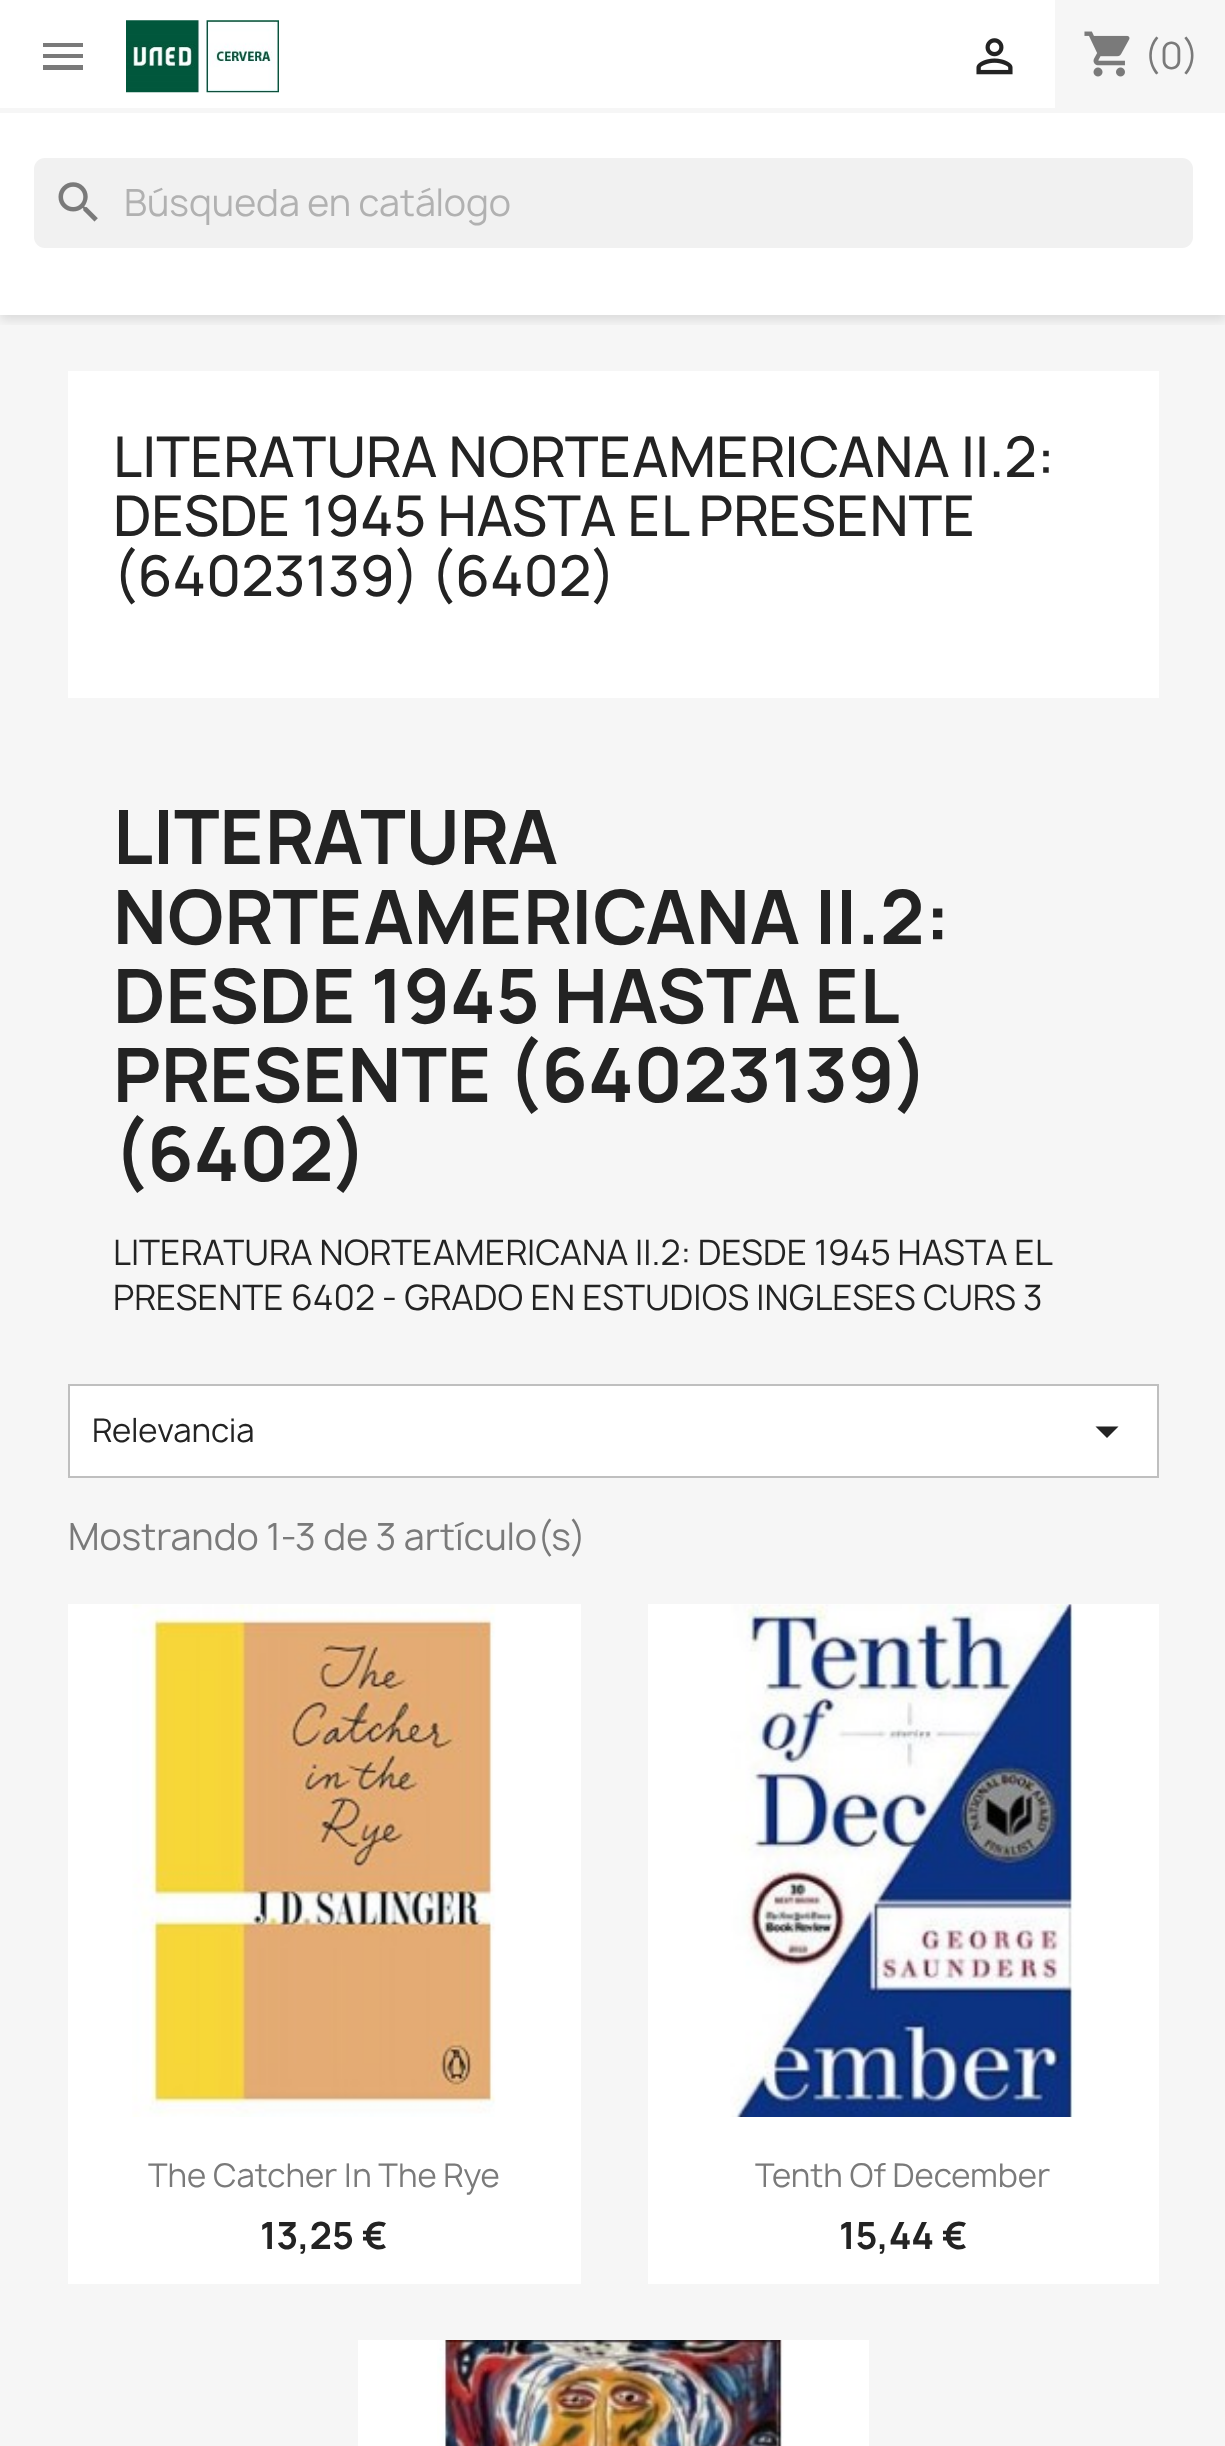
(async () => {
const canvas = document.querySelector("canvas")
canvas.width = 1225
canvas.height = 2446
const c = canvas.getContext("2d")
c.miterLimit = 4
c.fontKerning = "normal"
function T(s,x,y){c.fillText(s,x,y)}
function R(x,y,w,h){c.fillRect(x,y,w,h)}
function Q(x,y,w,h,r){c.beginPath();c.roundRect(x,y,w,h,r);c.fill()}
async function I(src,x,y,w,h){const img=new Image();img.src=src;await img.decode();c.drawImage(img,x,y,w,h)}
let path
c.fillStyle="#fff"
R(0,0,1225,2446)
c.fillStyle="#f6f6f6"
R(0,315,1225,2131)
c.save()
c.beginPath()
c.rect(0,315,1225,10)
c.clip()
c.fillStyle="#0000001c"
c.filter="blur(5.5px)"
c.beginPath()
c.rect(0,5,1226,315)
c.fill()
c.filter="none"
c.restore()
R(0,108,1225,5)
c.fillStyle="#7a7a7a"
path = new Path2D("M43 43h40v4h-40zm0 15v-4h40v4zm0 12v-5h40v5z")
c.fill(path)
await I("1.png",126,20,153,73)
await I("2.png",976,38,37,37)
c.fillStyle="#f6f6f6"
R(1055,0,170,108)
await I("3.png",1084,31,46,46)
c.font="36px Manrope"
c.fillStyle="#7a7a7a"
T("(0)",1144,69)
c.fillStyle="#f1f1f1"
Q(34,158,1159,90,11)
await I("4.png",58,182,40,40)
c.fillStyle="#b1b1b1"
T("Búsqueda en catálogo",124,216)
c.fillStyle="#fff"
R(68,371,1091,327)
c.font="500 54px Manrope"
c.fillStyle="#232323"
T("LITERATURA NORTEAMERICANA II.2:",113,477)
T("DESDE 1945 HASTA EL PRESENTE",113,536)
T("(64023139) (6402)",113,596)
c.font="bold 72px Manrope"
T("LITERATURA",113,864)
T("NORTEAMERICANA II.2:",113,944)
c.wordSpacing="-1px"
T("DESDE 1945 HASTA EL",113,1023)
c.wordSpacing="0px"
T("PRESENTE (64023139)",113,1102)
T("(6402)",113,1181)
c.wordSpacing="-0.25px"
c.font="33.75px Manrope"
T("LITERATURA NORTEAMERICANA II.2: DESDE 1945 HASTA EL",113,1265)
c.wordSpacing="0px"
T("PRESENTE 6402 - GRADO EN ESTUDIOS INGLESES CURS 3",113,1310)
c.fillStyle="#fff"
c.beginPath()
c.rect(69,1385,1089,92)
c.fill()
c.strokeStyle="#bfbfbf"
c.lineWidth=2
c.stroke()
c.font="31.5px Manrope"
c.fillStyle="#232323"
T("Relevancia",92,1442)
path = new Path2D("M1095.5 1426.5h23l-11.5 11.5z")
c.fill(path)
c.font="36px Manrope"
c.fillStyle="#7a7a7a"
T("Mostrando 1-3 de 3 artículo(s)",68,1550)
c.fillStyle="#fff"
R(68,1604,513,680)
await I("5.png",132,1604,364,513)
c.font="31.5px Manrope"
c.fillStyle="#7a7a7a"
T("The Catcher In The Rye",148,2187)
c.font="bold 36px Manrope"
c.fillStyle="#232323"
T("13,25 €",260,2249)
c.fillStyle="#fff"
R(648,1604,511,680)
await I("6.png",730,1604,345,513)
c.font="31.5px Manrope"
c.fillStyle="#7a7a7a"
T("Tenth Of December",755,2187)
c.font="bold 36px Manrope"
c.fillStyle="#232323"
T("15,44 €",839,2249)
c.fillStyle="#fff"
R(358,2340,511,106)
await I("7.png",437,2340,347,106)
})()
